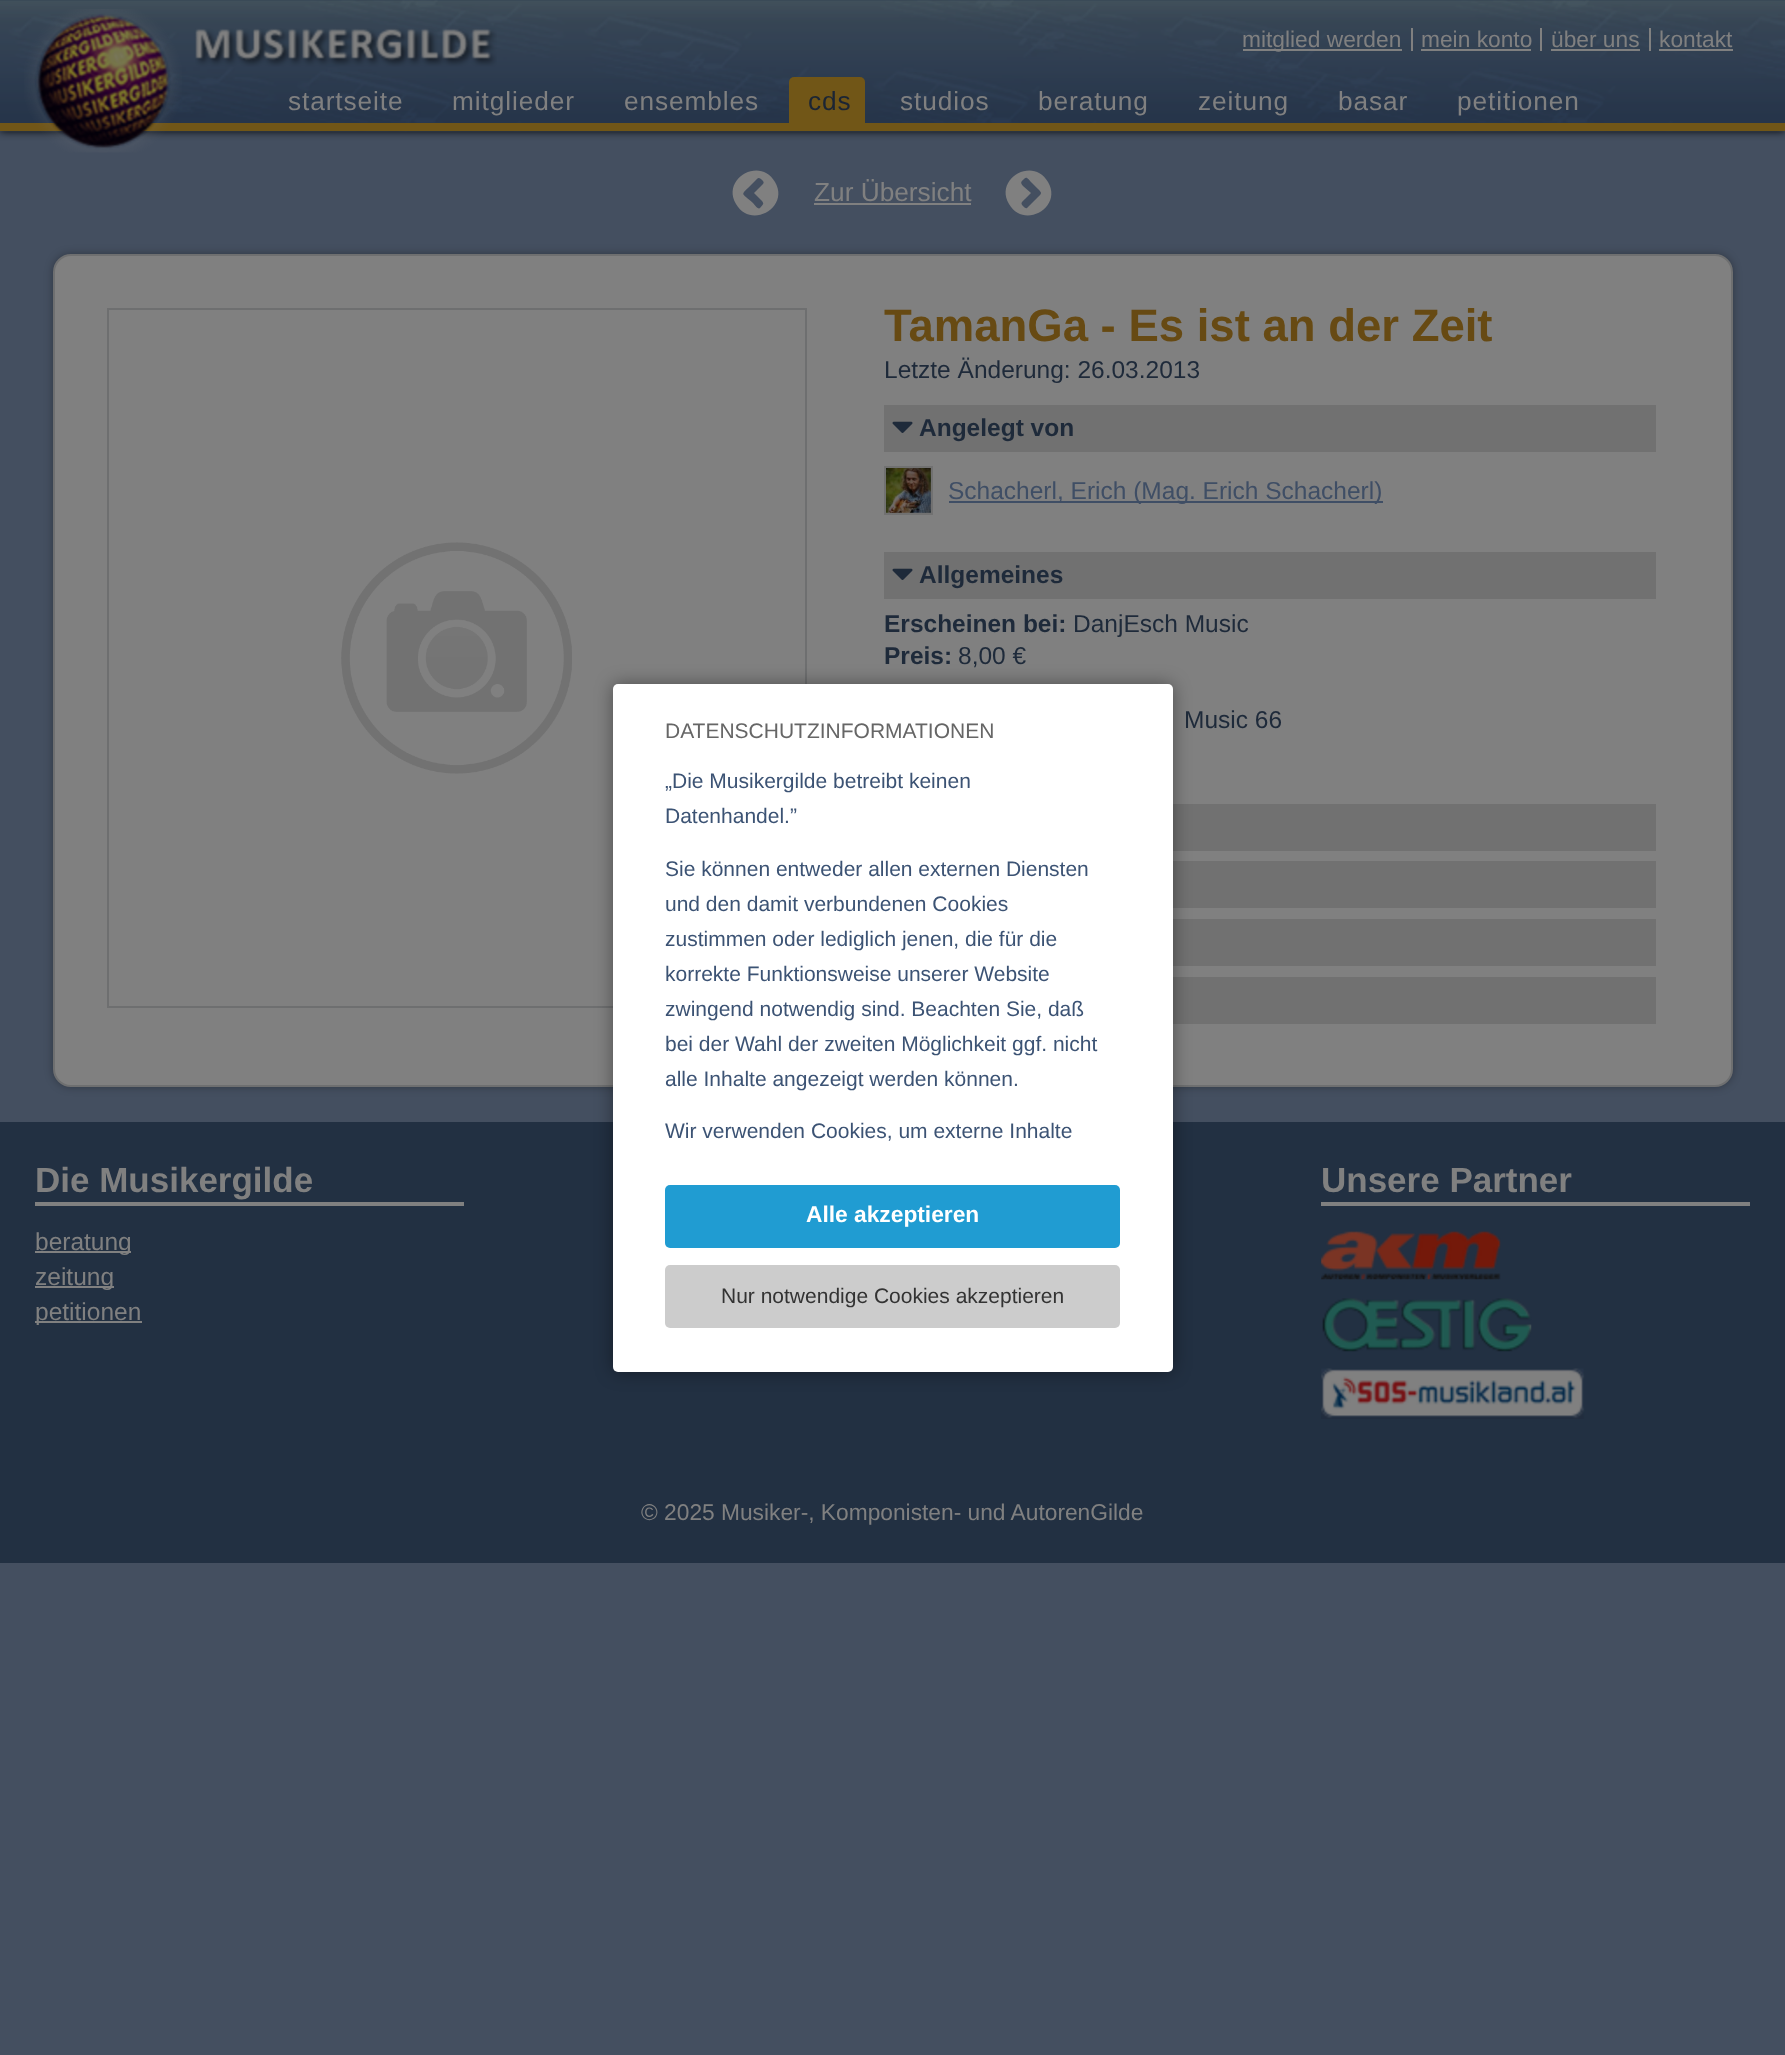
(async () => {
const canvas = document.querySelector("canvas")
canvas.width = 1785
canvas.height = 2055
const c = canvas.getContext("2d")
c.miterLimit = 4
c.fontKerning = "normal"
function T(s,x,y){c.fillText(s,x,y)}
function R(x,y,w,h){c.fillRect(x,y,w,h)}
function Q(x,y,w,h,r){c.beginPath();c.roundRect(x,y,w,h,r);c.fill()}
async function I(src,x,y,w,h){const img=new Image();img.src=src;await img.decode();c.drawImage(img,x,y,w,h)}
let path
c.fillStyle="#444f60"
R(0,0,1785,2055)
c.fillStyle="#000"
c.filter="blur(4.5px)"
c.beginPath()
c.rect(0,0,1785,131)
c.fill()
c.filter="none"
await I("1.png",0,0,1785,132)
c.fillStyle="#715617"
R(0,123,1785,8)
await I("2.png",24,9,158,144)
await I("3.png",195,28,302,39)
c.fillStyle="#808080"
R(1243,49,159,2)
c.font="22.75px Liberation Sans"
T("mitglied werden",1242,47)
R(1411,28,2,23)
T("mein konto",1421,47)
R(1421,49,110,2)
R(1540,28,2,23)
T("über uns",1551,47)
R(1551,49,89,2)
R(1649,28,2,23)
T("kontakt",1659,47)
R(1659,49,74,2)
c.letterSpacing="0.9px"
c.font="26.25px Liberation Sans"
T("startseite",288,110)
T("mitglieder",452,110)
T("ensembles",624,110)
c.fillStyle="#715617"
c.beginPath()
c.roundRect(789,77,76,51,[5,5,0,0])
c.fill()
c.fillStyle="#1b2534"
T("cds",808,110)
c.fillStyle="#808080"
T("studios",900,110)
T("beratung",1038,110)
T("zeitung",1198,110)
T("basar",1338,110)
T("petitionen",1457,110)
path = new Path2D("M760 208c3-4 5-4 1-8l-7-7l9-9c2-2-1-4-2-5c-3-2-3-1-6 2l-4 4c-11 11-10 7 2 18c1 1 5 7 7 5zm15-26c15 25-24 48-39 22c-15-25 24-48 39-22z")
c.fill(path)
c.letterSpacing="0px"
T("Zur Übersicht",814,201)
R(814,203,157,2)
path = new Path2D("M1027 208l11-11c4-4 4-4 0-8l-6-6c-4-4-5-7-8-4c-3 3-4 3-1 7l8 7l-6 6c-3 3-5 4-2 7c1 1 3 3 4 2zm21-26c15 25-24 48-39 22c-15-25 24-48 39-22z")
c.fill(path)
c.fillStyle="#0000004d"
c.filter="blur(4.5px)"
c.beginPath()
c.roundRect(53,254,1680,833,18)
c.fill()
c.filter="none"
c.fillStyle="#808080"
c.beginPath()
c.roundRect(54,255,1678,831,17)
c.fill()
c.strokeStyle="#6e6f70"
c.lineWidth=2
c.stroke()
c.strokeRect(108,309,698,698)
await I("4.png",341,542,231,232)
c.font="bold 45.5px Liberation Sans"
c.fillStyle="#674a13"
T("TamanGa - Es ist an der Zeit",884,341)
c.font="24.5px Liberation Sans"
c.fillStyle="#1e2a3a"
T("Letzte Änderung: 26.03.2013",884,378)
c.fillStyle="#717171"
R(884,405,772,47)
await I("5.png",892,421,21,12)
c.font="bold 24.5px Liberation Sans"
c.fillStyle="#1e2a3a"
T("Angelegt von",919,436)
await I("6.png",886,468,45,45)
c.strokeStyle="#717171"
c.strokeRect(885,467,47,47)
c.fillStyle="#3f4e65"
R(949,501,434,2)
c.font="24.5px Liberation Sans"
T("Schacherl, Erich (Mag. Erich Schacherl)",948,499)
c.fillStyle="#717171"
R(884,552,772,47)
await I("5.png",892,568,21,12)
c.font="bold 24.5px Liberation Sans"
c.fillStyle="#1e2a3a"
T("Allgemeines",919,583)
T("Erscheinen bei:",884,632)
c.font="24.5px Liberation Sans"
T("DanjEsch Music",1073,632)
c.font="bold 24.5px Liberation Sans"
T("Preis:",884,664)
c.font="24.5px Liberation Sans"
T("8,00 €",958,664)
T("Music 66",1184,728)
c.fillStyle="#717171"
R(1173,804,483,47)
R(1173,861,483,47)
R(1173,919,483,47)
R(1173,977,483,47)
c.fillStyle="#223042"
R(0,1122,1785,441)
c.fillStyle="#00000066"
c.filter="blur(9px)"
c.beginPath()
c.roundRect(613,684,560,688,5)
c.fill()
c.filter="none"
c.fillStyle="#fff"
Q(613,684,560,688,5)
c.font="21px Liberation Sans"
c.fillStyle="#666"
T("DATENSCHUTZINFORMATIONEN",665,738)
c.fillStyle="#3c5374"
T("„Die Musikergilde betreibt keinen",665,788)
T("Datenhandel.”",665,823)
T("Sie können entweder allen externen Diensten",665,876)
T("und den damit verbundenen Cookies",665,911)
T("zustimmen oder lediglich jenen, die für die",665,946)
T("korrekte Funktionsweise unserer Website",665,981)
T("zwingend notwendig sind. Beachten Sie, daß",665,1016)
T("bei der Wahl der zweiten Möglichkeit ggf. nicht",665,1051)
T("alle Inhalte angezeigt werden können.",665,1086)
T("Wir verwenden Cookies, um externe Inhalte",665,1138)
c.fillStyle="#209cd2"
Q(665,1185,455,63,5)
c.font="bold 22.75px Liberation Sans"
c.fillStyle="#fff"
T("Alle akzeptieren",806,1222)
c.fillStyle="#ccc"
Q(665,1265,455,63,5)
c.font="21px Liberation Sans"
c.fillStyle="#333"
T("Nur notwendige Cookies akzeptieren",721,1303)
c.fillStyle="#808080"
R(35,1202,429,4)
c.font="bold 35px Liberation Sans"
T("Die Musikergilde",35,1192)
R(35,1251,96,2)
c.font="24.5px Liberation Sans"
T("beratung",35,1250)
R(35,1286,79,2)
T("zeitung",35,1285)
R(35,1321,107,2)
T("petitionen",35,1320)
R(1321,1202,429,4)
c.font="bold 35px Liberation Sans"
T("Unsere Partner",1321,1192)
await I("7.png",1321,1231,180,49)
await I("8.png",1322,1298,210,54)
await I("9.png",1321,1368,264,51)
c.font="22.75px Liberation Sans"
T("© 2025 Musiker-, Komponisten- und AutorenGilde",641,1520)
})()
